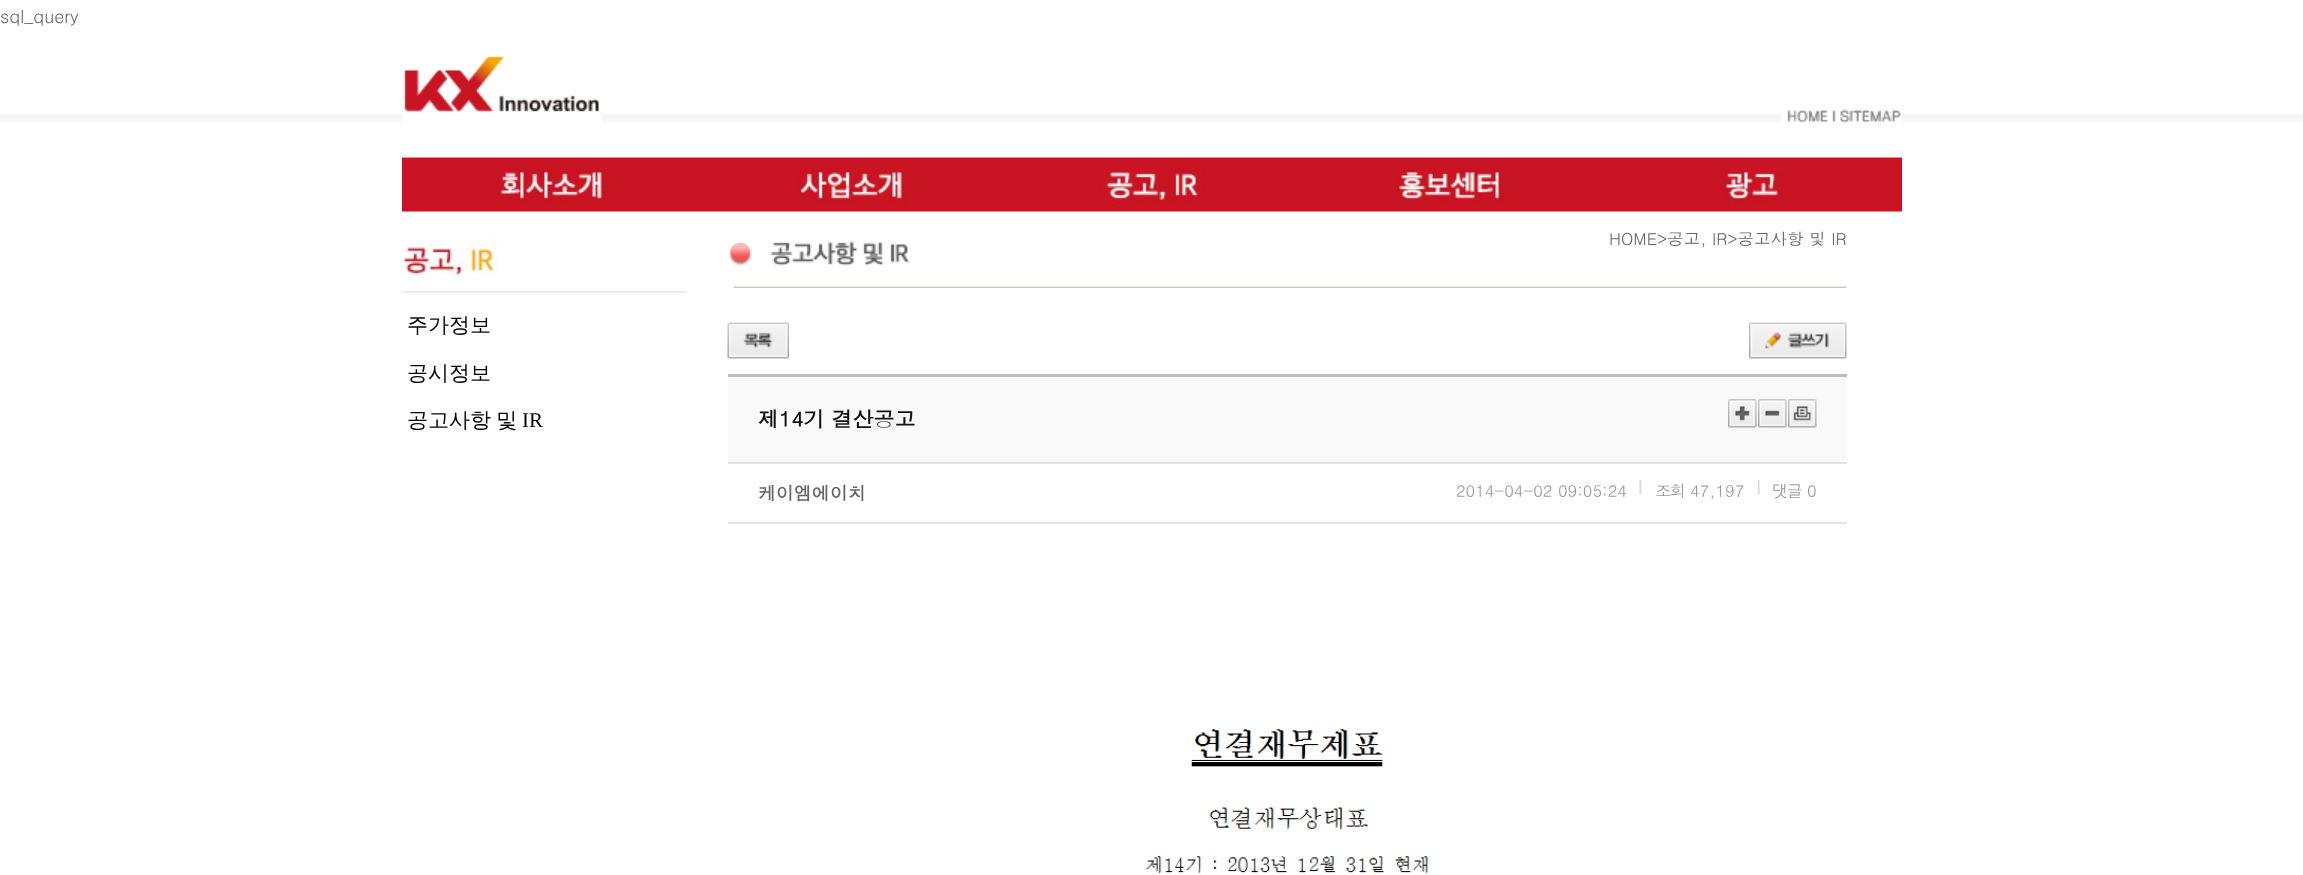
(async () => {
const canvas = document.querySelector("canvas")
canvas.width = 2303
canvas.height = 875
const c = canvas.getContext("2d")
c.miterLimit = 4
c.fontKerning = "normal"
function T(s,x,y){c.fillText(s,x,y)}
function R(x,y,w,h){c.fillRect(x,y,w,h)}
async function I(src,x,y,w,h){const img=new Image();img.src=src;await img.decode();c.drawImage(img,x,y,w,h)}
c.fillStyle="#fff"
R(0,0,2303,875)
await I("1.png",0,114,2303,9)
c.font="18px Dotum"
c.fillStyle="#666"
T("sql_query",0,23)
await I("2.png",402,56,200,67)
await I("3.png",1780,109,50,15)
await I("4.png",1830,109,11,14)
await I("5.png",1840,109,62,15)
await I("6.png",402,157,300,55)
await I("7.png",702,157,300,55)
await I("8.png",1002,157,300,55)
await I("9.png",1302,157,300,55)
await I("10.png",1602,157,300,55)
await I("11.png",402,238,285,55)
c.font="500 21px WenQuanYi Zen Hei"
c.fillStyle="#000"
T("주가정보",407,332)
T("공시정보",407,380)
c.wordSpacing="-1px"
T("공고사항 및",407,427)
c.wordSpacing="0px"
c.font="21px Liberation Serif"
T("IR",522,427)
c.font="16.5px Dotum"
c.fillStyle="#666"
T("HOME>공고, IR>공고사항 및 IR",1609,245)
await I("12.png",729,242,1118,46)
await I("13.png",770,241,140,25)
await I("14.png",727,322,62,37)
await I("15.png",1749,322,98,37)
c.fillStyle="#bdbdbd"
R(728,374,1119,3)
c.fillStyle="#e4e4e4"
R(728,522,1119,2)
c.fillStyle="#f9f9f9"
R(728,377,1119,85)
c.fillStyle="#e4e4e4"
R(728,462,1119,2)
c.font="bold 21px Dotum"
c.fillStyle="#101010"
T("제14기 결산공고",758,427)
await I("16.png",1728,399,29,29)
await I("17.png",1758,399,29,29)
await I("18.png",1788,399,29,29)
c.font="bold 18px Dotum"
c.fillStyle="#666"
T("케이엠에이치",758,500)
c.font="16.5px Dotum"
c.fillStyle="#999"
T("2014-04-02 09:05:24",1456,497)
await I("19.png",1639,479,3,16)
c.letterSpacing="-2px"
T("조회",1655,497)
c.letterSpacing="0px"
T("47,197",1690,497)
await I("20.png",1757,479,3,16)
c.letterSpacing="-2px"
T("댓글",1772,497)
c.letterSpacing="0px"
T("0",1807,497)
await I("21.png",1146,729,282,145)
})()
